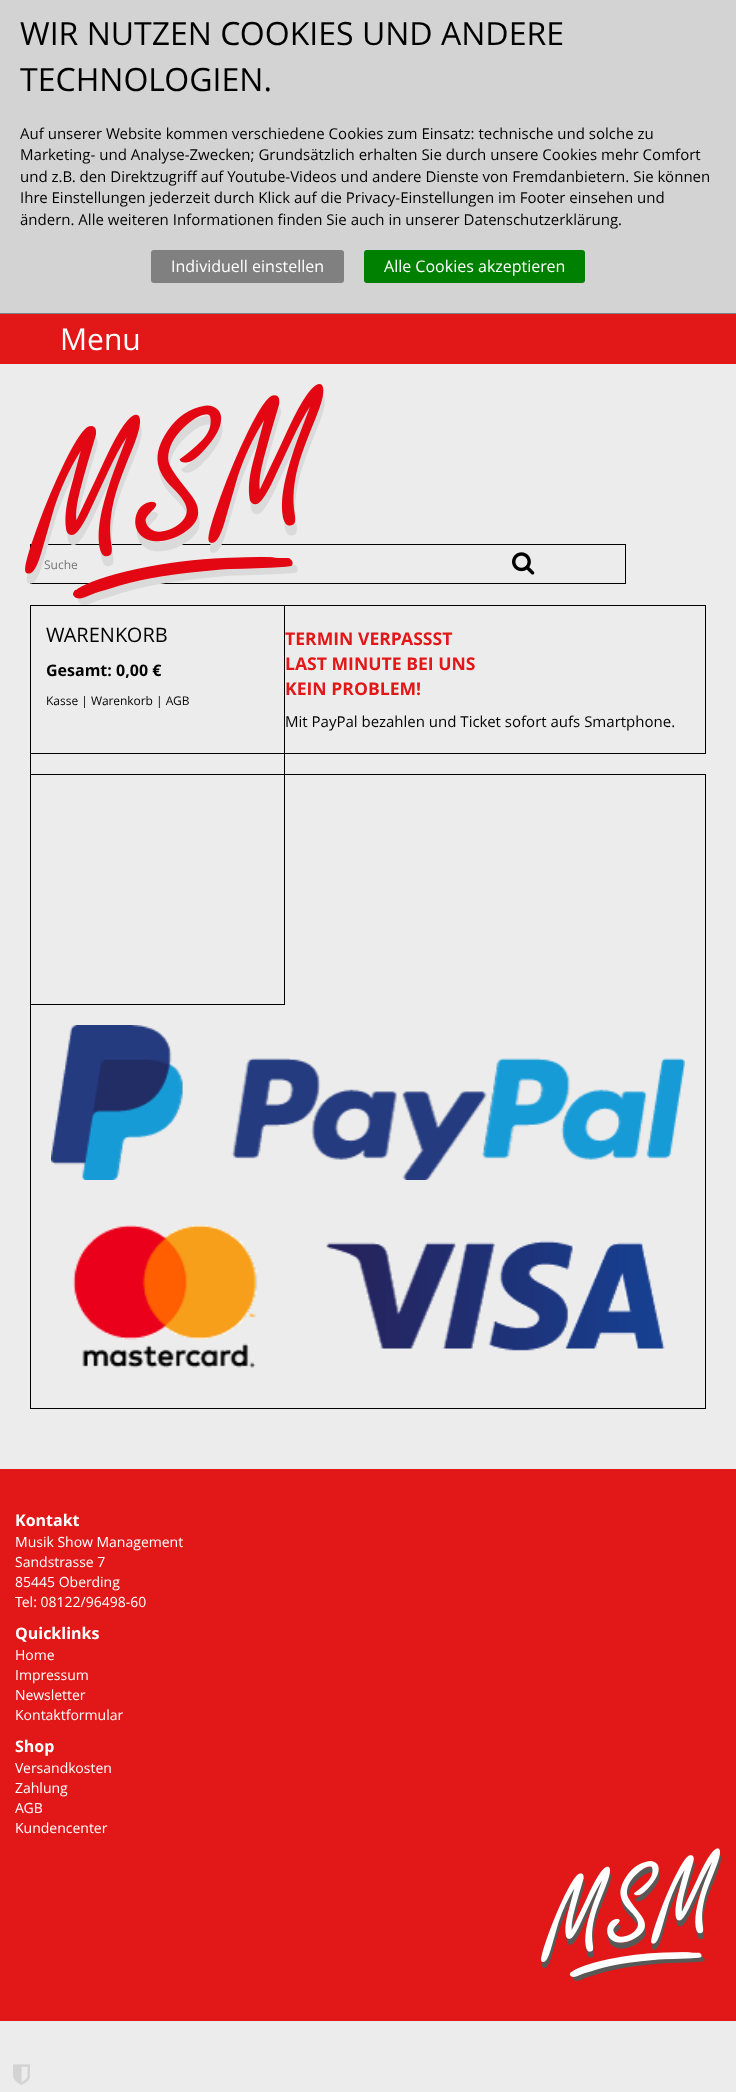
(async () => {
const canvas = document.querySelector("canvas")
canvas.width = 736
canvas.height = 2092
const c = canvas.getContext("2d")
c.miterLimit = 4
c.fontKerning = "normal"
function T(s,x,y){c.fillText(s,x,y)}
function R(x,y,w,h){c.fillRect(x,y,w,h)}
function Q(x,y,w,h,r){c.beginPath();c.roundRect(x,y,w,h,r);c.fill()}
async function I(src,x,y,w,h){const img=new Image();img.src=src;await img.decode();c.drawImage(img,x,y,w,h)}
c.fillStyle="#ececec"
R(0,0,736,2092)
c.fillStyle="#d3d3d3"
R(0,0,736,313)
c.fillStyle="#808080"
R(0,313,736,1)
c.font="32px Open Sans"
c.fillStyle="#000"
T("WIR NUTZEN COOKIES UND ANDERE",20,45)
T("TECHNOLOGIEN.",20,91)
c.font="15px Open Sans"
T("Auf unserer Website kommen verschiedene Cookies zum Einsatz: technische und solche zu",20,139)
T("Marketing- und Analyse-Zwecken; Grundsätzlich erhalten Sie durch unsere Cookies mehr Comfort",20,160)
T("und z.B. den Direktzugriff auf Youtube-Videos und andere Dienste von Fremdanbietern. Sie können",20,182)
T("Ihre Einstellungen jederzeit durch Klick auf die Privacy-Einstellungen im Footer einsehen und",20,203)
T("ändern. Alle weiteren Informationen finden Sie auch in unserer Datenschutzerklärung.",20,225)
c.fillStyle="#808080"
Q(151,250,193,33,3)
c.font="16px Open Sans"
c.fillStyle="#fff"
T("Individuell einstellen",171,272)
c.fillStyle="#008000"
Q(364,250,221,33,3)
c.fillStyle="#fff"
T("Alle Cookies akzeptieren",384,272)
c.fillStyle="#e21717"
R(0,314,736,50)
c.font="30px Open Sans"
c.fillStyle="#fff"
T("Menu",60,350)
c.strokeStyle="#000"
c.strokeRect(30.5,544.5,595,39)
c.font="12px Open Sans"
c.fillStyle="#757575"
T("Suche",44,569)
await I("1.png",25,384,300,221)
await I("2.png",512,552,23,23)
c.strokeRect(30.5,605.5,675,148)
c.strokeRect(30.5,774.5,675,634)
c.strokeRect(30.5,605.5,254,399)
c.font="20px Open Sans"
c.fillStyle="#000"
T("WARENKORB",46,642)
c.font="bold 16px Open Sans"
T("Gesamt: 0,00 €",46,676)
c.font="12px Open Sans"
T("Kasse | Warenkorb | AGB",46,705)
c.font="bold 17.6px Open Sans"
c.fillStyle="#e21717"
T("TERMIN VERPASSST",285,645)
T("LAST MINUTE BEI UNS",285,670)
T("KEIN PROBLEM!",285,695)
c.font="15px Open Sans"
c.fillStyle="#000"
T("Mit PayPal bezahlen und Ticket sofort aufs Smartphone.",285,727)
await I("3.png",51,1025,634,155)
await I("4.png",73,1225,592,143)
c.fillStyle="#e21717"
R(0,1469,736,552)
c.font="bold 16px Open Sans"
c.fillStyle="#fff"
T("Kontakt",15,1526)
c.font="14px Open Sans"
T("Musik Show Management",15,1547)
T("Sandstrasse 7",15,1567)
T("85445 Oberding",15,1587)
T("Tel: 08122/96498-60",15,1607)
c.font="bold 16px Open Sans"
T("Quicklinks",15,1639)
c.font="14px Open Sans"
T("Home",15,1660)
T("Impressum",15,1680)
T("Newsletter",15,1700)
T("Kontaktformular",15,1720)
c.font="bold 16px Open Sans"
T("Shop",15,1752)
c.font="14px Open Sans"
T("Versandkosten",15,1773)
T("Zahlung",15,1793)
T("AGB",15,1813)
T("Kundencenter",15,1833)
await I("5.png",541,1848,180,133)
await I("6.png",13,2064,17,21)
})()
